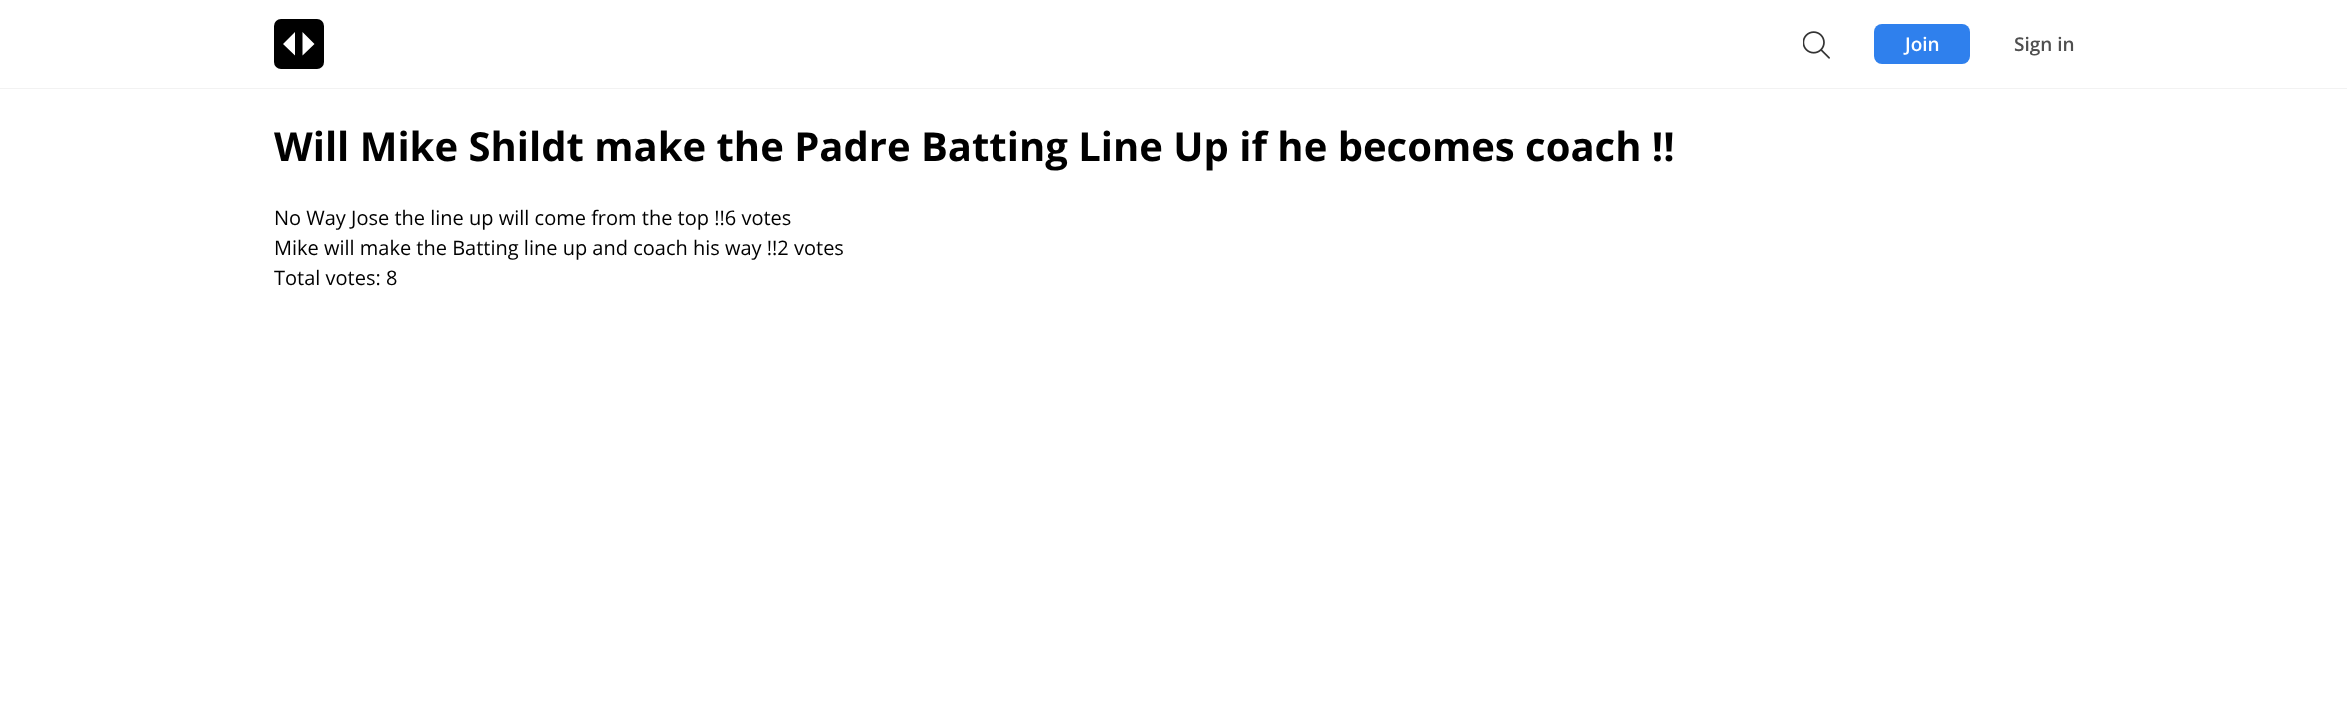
(async () => {
const canvas = document.querySelector("canvas")
canvas.width = 2347
canvas.height = 720
const c = canvas.getContext("2d")
c.miterLimit = 4
c.fontKerning = "normal"
function T(s,x,y){c.fillText(s,x,y)}
function R(x,y,w,h){c.fillRect(x,y,w,h)}
function Q(x,y,w,h,r){c.beginPath();c.roundRect(x,y,w,h,r);c.fill()}
async function I(src,x,y,w,h){const img=new Image();img.src=src;await img.decode();c.drawImage(img,x,y,w,h)}
let path
c.fillStyle="#fff"
R(0,0,2347,720)
c.fillStyle="#f2f2f2"
R(0,88,2347,1)
c.fillStyle="#000"
Q(274,19,50,50,7)
c.fillStyle="#fff"
path = new Path2D("M295 32v23.5l-12-11.5zm7.5 0v23.5l12-11.5z")
c.fill(path)
await I("1.png",1803,31,27,28)
c.fillStyle="#2f80ed"
Q(1874,24,96,40,8)
c.font="600 19px Open Sans"
c.fillStyle="#fff"
T("Join",1905,51)
c.fillStyle="#4f4f4f"
T("Sign in",2014,51)
c.font="bold 40px Open Sans"
c.fillStyle="#000"
T("Will Mike Shildt make the Padre Batting Line Up if he becomes coach !!",274,161)
c.font="20px Open Sans"
T("No Way Jose the line up will come from the top !!6 votes",274,225)
T("Mike will make the Batting line up and coach his way !!2 votes",274,255)
T("Total votes: 8",274,285)
})()
